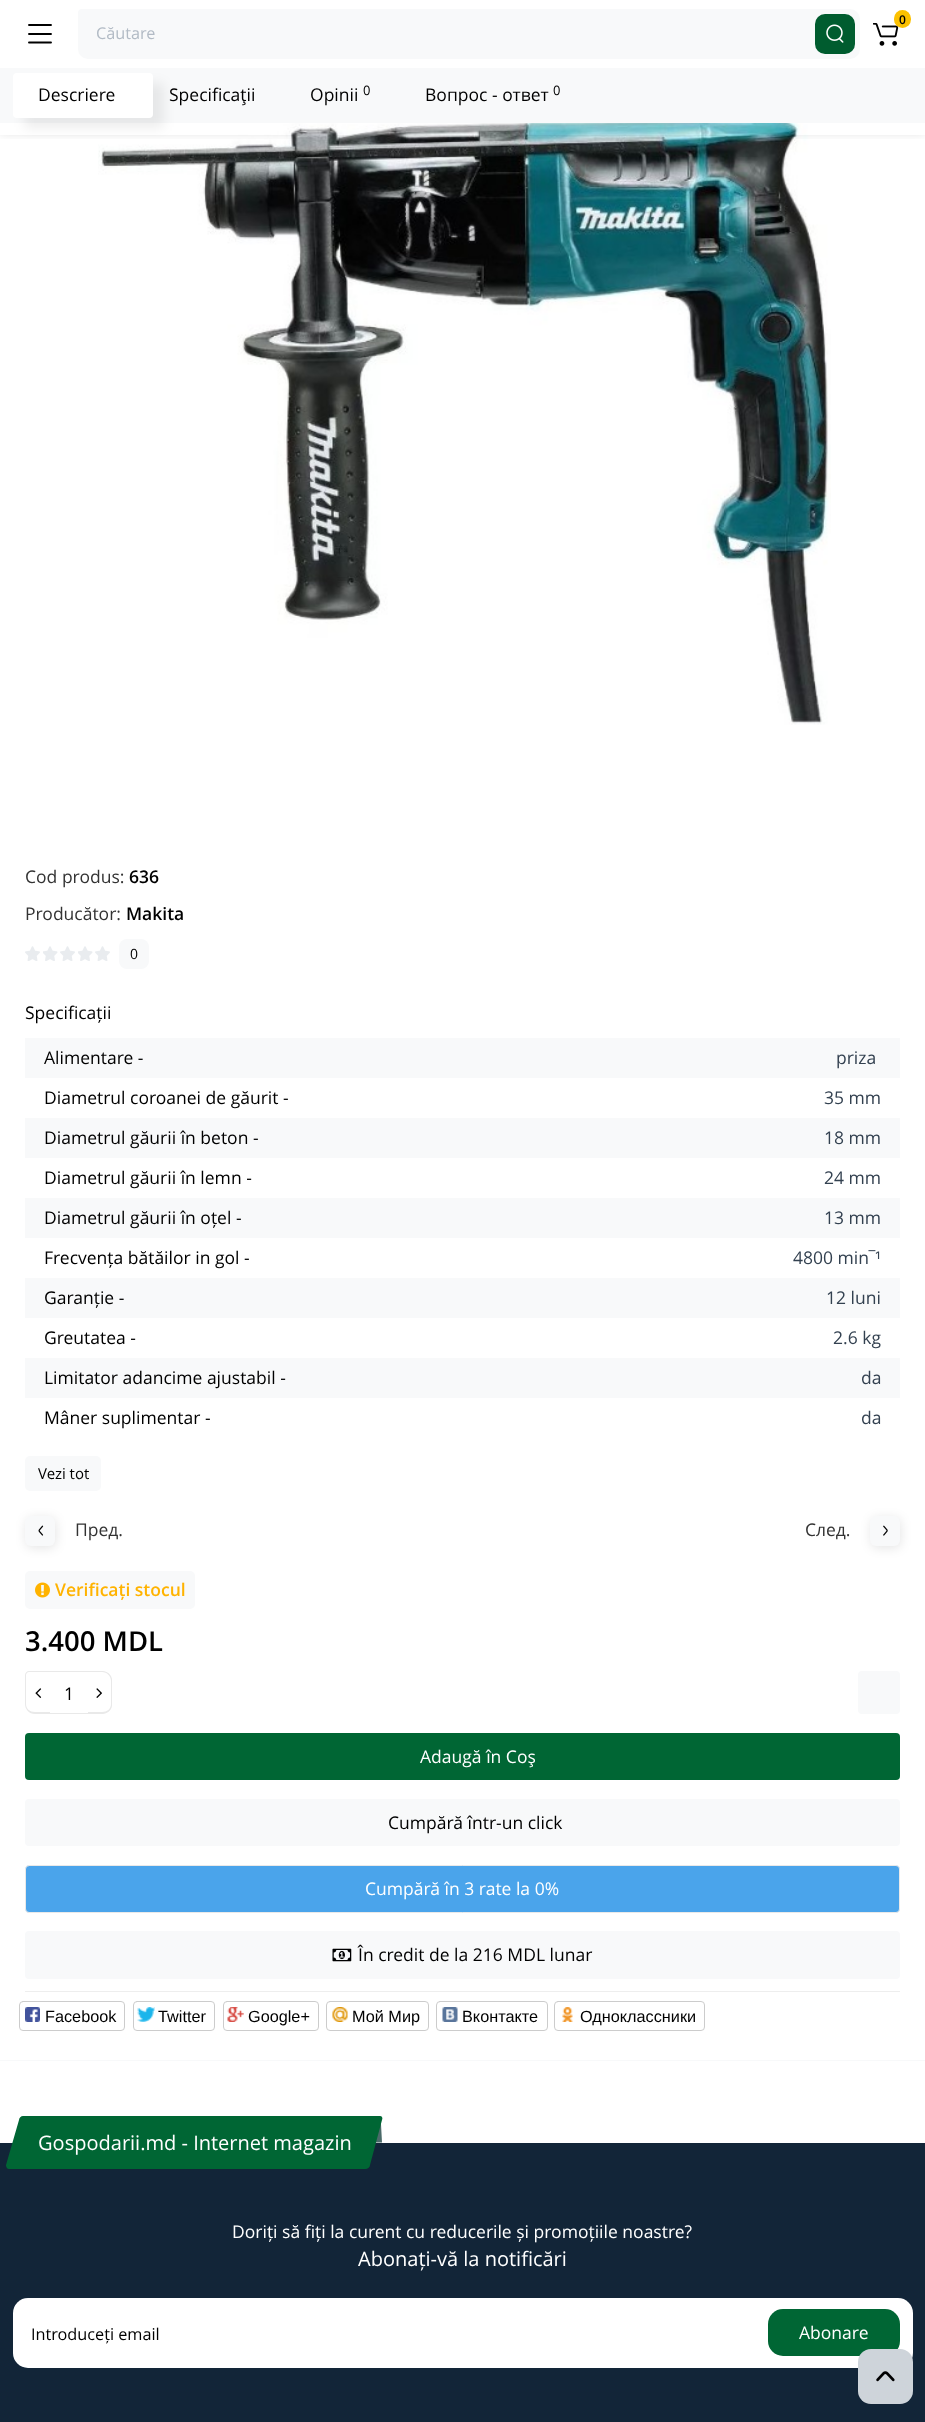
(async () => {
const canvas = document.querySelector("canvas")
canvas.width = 925
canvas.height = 2422
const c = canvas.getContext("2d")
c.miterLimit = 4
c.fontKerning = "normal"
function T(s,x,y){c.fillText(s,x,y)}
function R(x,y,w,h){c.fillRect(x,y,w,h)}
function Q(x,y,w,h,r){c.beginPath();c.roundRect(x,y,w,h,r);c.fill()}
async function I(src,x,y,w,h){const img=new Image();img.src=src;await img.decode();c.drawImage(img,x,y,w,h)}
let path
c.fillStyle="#fff"
R(0,0,925,2422)
await I("3.png",98,123,733,602)
c.save()
c.beginPath()
c.rect(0,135,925,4)
c.clip()
c.fillStyle="#00000033"
c.filter="blur(6px)"
c.beginPath()
c.rect(0,64,925,67)
c.fill()
c.filter="none"
c.restore()
c.fillStyle="#f8f9fa"
R(0,68,925,55)
c.fillStyle="#00000012"
c.filter="blur(6px)"
c.beginPath()
c.roundRect(24,83,140,45,4)
c.fill()
c.filter="none"
c.fillStyle="#fff"
R(0,54,925,14)
await I("1.png",873,23,26,23)
c.fillStyle="#fcc100"
Q(894,10,17,18,8.5)
c.font="600 12px Open Sans"
c.fillStyle="#000"
T("0",899,24)
path = new Path2D("M29 25h22m-22 9h22m-22 8.5h22")
c.strokeStyle="#000"
c.lineWidth=1.9
c.lineCap="round"
c.lineJoin="round"
c.stroke(path)
c.fillStyle="#f8f9fa"
c.beginPath()
c.roundRect(78,9,738,50,[4,0,0,10])
c.fill()
c.font="16.25px Open Sans"
c.fillStyle="#b2bbc5"
T("Căutare",96,39)
c.fillStyle="#f8f9fa"
c.beginPath()
c.roundRect(816,9,44,50,[0,10,10,0])
c.fill()
c.fillStyle="#005c2f"
Q(815,14,40,40,10)
await I("2.png",826,24,18,19)
c.fillStyle="#f8f9fa"
R(0,2060,925,1)
c.fillStyle="#fff"
Q(13,73,140,45,4)
c.font="17.5px Open Sans"
c.fillStyle="#000"
T("Specificaţii",169,101)
T("Opinii",310,101)
c.font="13px Open Sans"
T("0",363,95)
c.font="17.5px Open Sans"
T("Вопрос - ответ",425,101)
c.font="13px Open Sans"
T("0",553,95)
c.font="17.5px Open Sans"
T("Descriere",38,101)
c.fillStyle="#333"
T("Cod produs:",25,883)
c.font="600 17.5px Open Sans"
c.fillStyle="#000"
T("636",129,883)
c.font="17.5px Open Sans"
c.fillStyle="#333"
T("Producător:",25,920)
c.font="600 17.5px Open Sans"
c.fillStyle="#000"
T("Makita",126,920)
await I("4.png",25,946,15,15)
await I("5.png",43,946,15,15)
await I("4.png",60,946,15,15)
await I("5.png",78,946,15,15)
await I("4.png",95,946,15,15)
c.fillStyle="#f8f9fa"
Q(119,939,30,30,8)
c.font="14px Open Sans"
c.fillStyle="#000"
T("0",130,959)
c.font="17.5px Open Sans"
T("Specificații",25,1019)
c.fillStyle="#f8f9fa"
R(25,1038,875,40)
c.fillStyle="#000"
T("Alimentare -",44,1064)
c.fillStyle="#334150"
T("priza",836,1064)
c.fillStyle="#000"
T("Diametrul coroanei de găurit -",44,1104)
c.fillStyle="#334150"
T("35 mm",824,1104)
c.fillStyle="#f8f9fa"
R(25,1118,875,40)
c.fillStyle="#000"
T("Diametrul găurii în beton -",44,1144)
c.fillStyle="#334150"
T("18 mm",824,1144)
c.fillStyle="#000"
T("Diametrul găurii în lemn -",44,1184)
c.fillStyle="#334150"
T("24 mm",824,1184)
c.fillStyle="#f8f9fa"
R(25,1198,875,40)
c.fillStyle="#000"
T("Diametrul găurii în oțel -",44,1224)
c.fillStyle="#334150"
T("13 mm",824,1224)
c.fillStyle="#000"
T("Frecvența bătăilor in gol -",44,1264)
c.fillStyle="#334150"
T("4800 min",793,1264)
c.font="17.5px Liberation Sans"
T("‾",869,1264)
c.font="17.5px Open Sans"
T("¹",875,1264)
c.fillStyle="#f8f9fa"
R(25,1278,875,40)
c.fillStyle="#000"
T("Garanție -",44,1304)
c.fillStyle="#334150"
T("12 luni",826,1304)
c.fillStyle="#000"
T("Greutatea -",44,1344)
c.fillStyle="#334150"
T("2.6 kg",833,1344)
c.fillStyle="#f8f9fa"
R(25,1358,875,40)
c.fillStyle="#000"
T("Limitator adancime ajustabil -",44,1384)
c.fillStyle="#334150"
T("da",861,1384)
c.fillStyle="#000"
T("Mâner suplimentar -",44,1424)
c.fillStyle="#334150"
T("da",861,1424)
c.fillStyle="#f8f9fa"
Q(25,1456,76,35,5)
c.font="15px Open Sans"
c.fillStyle="#000"
T("Vezi tot",38,1479)
c.fillStyle="#0000001a"
c.filter="blur(5.5px)"
c.beginPath()
c.roundRect(26,1518,30,30,6)
c.fill()
c.filter="none"
c.fillStyle="#f8f9fa"
Q(25,1516,30,30,6)
await I("6.png",38,1525,6,11)
c.font="17.5px Open Sans"
c.fillStyle="#333"
T("Пред.",75,1536)
T("След.",805,1536)
c.fillStyle="#0000001a"
c.filter="blur(5.5px)"
c.beginPath()
c.roundRect(871,1518,30,30,6)
c.fill()
c.filter="none"
c.fillStyle="#f8f9fa"
Q(870,1516,30,30,6)
await I("7.png",883,1525,5,11)
Q(25,1571,170,38,5)
await I("8.png",35,1582,15,16)
c.font="600 17.5px Open Sans"
c.fillStyle="#ffb300"
T("Verificați stocul",55,1596)
c.font="600 27.5px Open Sans"
c.fillStyle="#000"
T("3.400 MDL",25,1651)
c.fillStyle="#e9e9e9"
path = new Path2D("M29 1671h21v43h-15c-6 0-10-5-10-10v-29c0-2 2-4 4-4zm0 1h21v40h-15c-5 0-9-3-9-8v-29c0-1 1-3 3-3z")
c.fill(path,"evenodd")
await I("9.png",35,1688,7,10)
R(50,1671,38,1)
R(50,1713,38,1)
c.font="17.5px Open Sans"
c.fillStyle="#000"
T("1",64,1700)
c.save()
c.beginPath()
c.rect(25,1671,875,43)
c.clip()
c.fillStyle="#e9e9e9"
path = new Path2D("M88 1671c7 0 22-3 24 8v27c-2 11-17 8-24 8zm0 1h14c5 0 9 4 9 9v23c0 5-4 8-9 8h-14z")
c.fill(path,"evenodd")
c.restore()
await I("10.png",96,1688,6,10)
c.fillStyle="#f8f9fa"
Q(858,1671,42,43,4)
c.fillStyle="#006634"
Q(25,1733,875,47,4)
c.fillStyle="#fff"
T("Adaugă în Coş",420,1763)
c.fillStyle="#f8f9fa"
Q(25,1799,875,47,4)
c.fillStyle="#000"
T("Cumpără într-un click",388,1829)
c.fillStyle="#4aa4eb"
c.beginPath()
c.roundRect(25.5,1865.5,874,47,3.5)
c.fill()
c.strokeStyle="#e9e9e9"
c.lineWidth=1
c.lineJoin="miter"
c.stroke()
c.fillStyle="#fff"
T("Cumpără în 3 rate la 0%",365,1895)
c.fillStyle="#f8f9fa"
Q(25,1931,875,48,4)
await I("11.png",332,1948,20,14)
c.fillStyle="#000"
T("În credit de la 216 MDL lunar",358,1961)
c.fillStyle="#eee"
R(25,1991,875,1)
c.beginPath()
c.roundRect(19.5,2001.5,105,29,3.5)
c.strokeStyle="#ccc"
c.stroke()
await I("12.png",25,2007,15,15)
c.font="16.25px Liberation Sans"
c.fillStyle="#000"
T("Facebook",45,2022)
c.beginPath()
c.roundRect(133.5,2001.5,81,29,3.5)
c.stroke()
await I("13.png",137,2007,18,15)
T("Twitter",158,2022)
c.beginPath()
c.roundRect(223.5,2001.5,95,29,3.5)
c.stroke()
await I("14.png",227,2007,17,15)
T("Google+",248,2022)
c.beginPath()
c.roundRect(326.5,2001.5,102,29,3.5)
c.stroke()
await I("15.png",332,2007,16,15)
T("Мой Мир",352,2022)
c.beginPath()
c.roundRect(436.5,2001.5,111,29,3.5)
c.stroke()
await I("16.png",442,2007,16,15)
T("Вконтакте",462,2022)
c.beginPath()
c.roundRect(554.5,2001.5,150,29,3.5)
c.stroke()
await I("17.png",562,2007,11,15)
T("Одноклассники",580,2022)
c.fillStyle="#4b6a69"
path = new Path2D("M353 2116.5h20c4 0 7.5 3.5 8 7.5l1 18.5h-20c-4 0-8-3-8-7.5z")
c.fill(path)
c.fillStyle="#122538"
R(0,2143,925,279)
c.fillStyle="#006634"
path = new Path2D("M23 2116h357c2 0 3 2 2 4l-12 45c0 2-2 4-5 4h-356c-2 0-3-2-3-4l13-45c0-2 2-4 4-4z")
c.fill(path)
c.font="20px Open Sans"
c.fillStyle="#fff"
T("Gospodarii.md - Internet magazin",38,2150)
c.font="17.5px Open Sans"
T("Doriți să fiți la curent cu reducerile și promoțiile noastre?",232,2238)
c.font="20px Open Sans"
T("Abonați-vă la notificări",358,2266)
c.beginPath()
c.roundRect(13,2298,756,70,[15,0,0,15])
c.fill()
c.font="16.25px Open Sans"
c.fillStyle="#000"
T("Introduceți email",31,2340)
c.fillStyle="#fff"
c.beginPath()
c.roundRect(769,2298,144,70,[0,15,15,0])
c.fill()
c.fillStyle="#006634"
Q(768,2309,132,47,15)
c.font="17.5px Open Sans"
c.fillStyle="#fff"
T("Abonare",799,2339)
c.fillStyle="#ced4da"
Q(858,2349,55,55,13)
await I("18.png",876,2371,19,11)
})()
